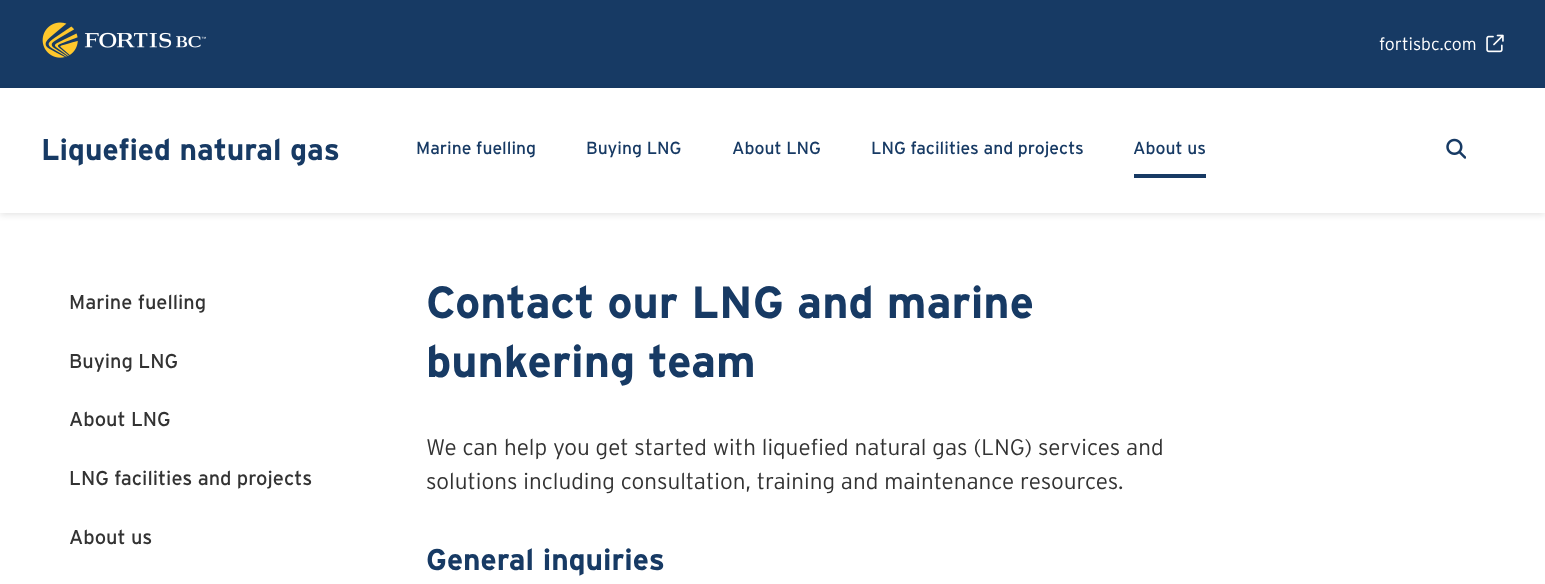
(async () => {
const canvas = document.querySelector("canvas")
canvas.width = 1545
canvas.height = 584
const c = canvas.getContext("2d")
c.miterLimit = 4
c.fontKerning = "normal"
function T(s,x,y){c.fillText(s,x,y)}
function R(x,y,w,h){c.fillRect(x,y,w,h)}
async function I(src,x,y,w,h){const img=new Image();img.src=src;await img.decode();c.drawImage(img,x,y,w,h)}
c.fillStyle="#fff"
R(0,0,1545,584)
c.fillStyle="#173a64"
R(0,0,1545,88)
await I("1.png",42,22,164,36)
c.font="300 17.5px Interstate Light"
c.fillStyle="#fff"
T("fortisbc.com",1379,50)
await I("2.png",1486,34,18,19)
c.fillStyle="#0000001a"
c.filter="blur(3px)"
c.beginPath()
c.rect(0,90,1545,125)
c.fill()
c.filter="none"
c.fillStyle="#fff"
R(0,88,1545,125)
c.font="bold 30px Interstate"
c.fillStyle="#173a64"
T("Liquefied natural gas",41,160)
c.font="17.5px Interstate"
T("Marine fuelling",416,154)
T("Buying LNG",586,154)
T("About LNG",732,154)
T("LNG facilities and projects",871,154)
R(1134,174,72,4)
T("About us",1133,154)
await I("3.png",1446,138,20,21)
c.font="20px Interstate"
c.fillStyle="#333"
T("Marine fuelling",69,309)
T("Buying LNG",69,368)
T("About LNG",69,426)
T("LNG facilities and projects",69,485)
T("About us",69,544)
c.font="bold 45px Interstate"
c.fillStyle="#173a64"
T("Contact our LNG and marine",426,318)
T("bunkering team",426,377)
c.font="300 22.5px Interstate Light"
c.fillStyle="#333"
T("We can help you get started with liquefied natural gas (LNG) services and",426,455)
T("solutions including consultation, training and maintenance resources.",426,489)
c.font="bold 30px Interstate"
c.fillStyle="#173a64"
T("General inquiries",426,570)
})()
